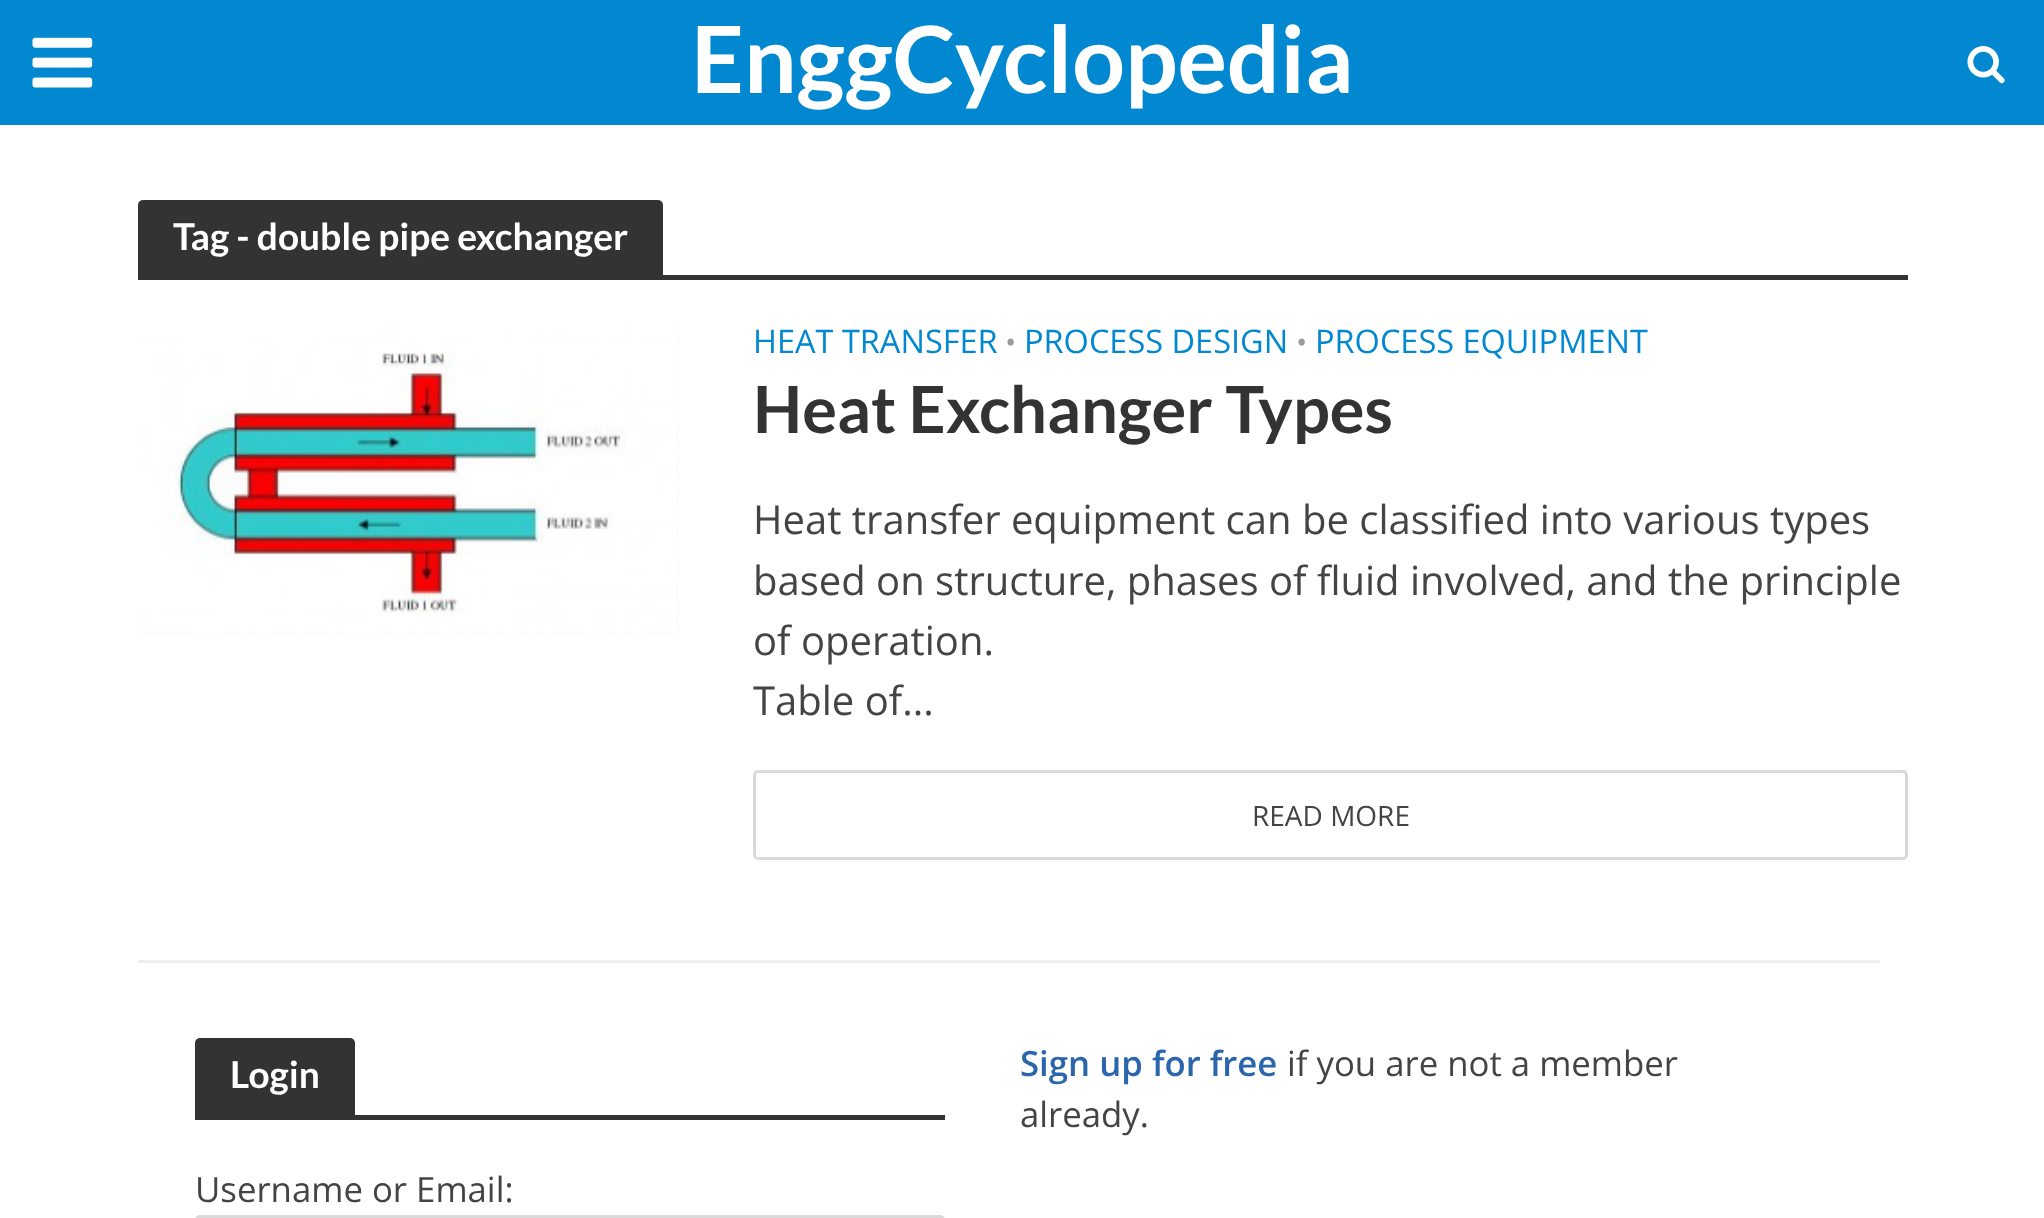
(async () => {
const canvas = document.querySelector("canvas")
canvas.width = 2044
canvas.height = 1218
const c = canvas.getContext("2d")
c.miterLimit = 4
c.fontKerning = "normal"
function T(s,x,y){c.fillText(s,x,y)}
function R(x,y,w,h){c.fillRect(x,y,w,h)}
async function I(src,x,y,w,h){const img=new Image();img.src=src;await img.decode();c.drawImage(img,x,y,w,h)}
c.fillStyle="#fff"
R(0,0,2044,1218)
c.fillStyle="#0288d1"
R(0,0,2044,125)
await I("1.png",32,37,61,51)
c.font="bold 92.75px Lato"
c.fillStyle="#fff"
T("EnggCyclopedia",691,93)
await I("2.png",1967,46,38,38)
c.fillStyle="#333"
c.beginPath()
c.roundRect(138,200,525,75,[5,5,0,0])
c.fill()
c.font="bold 37.1px Lato"
c.fillStyle="#fff"
T("Tag - double pipe exchanger",173,250)
c.fillStyle="#333"
R(138,275,1770,5)
c.fillStyle="#f3f3f3"
R(138,325,540,308)
await I("3.png",138,325,540,308)
c.font="32.5px Open Sans"
c.fillStyle="#0288d1"
T("HEAT TRANSFER",753,353)
c.font="30px Open Sans"
c.fillStyle="#999"
T("•",1005,353)
c.font="32.5px Open Sans"
c.fillStyle="#0288d1"
T("PROCESS DESIGN",1024,353)
c.font="30px Open Sans"
c.fillStyle="#999"
T("•",1296,353)
c.font="32.5px Open Sans"
c.fillStyle="#0288d1"
T("PROCESS EQUIPMENT",1315,353)
c.font="bold 65px Lato"
c.fillStyle="#333"
T("Heat Exchanger Types",753,433)
c.font="40px Open Sans"
c.fillStyle="#444"
T("Heat transfer equipment can be classified into various types",753,534)
T("based on structure, phases of fluid involved, and the principle",753,595)
T("of operation.",753,655)
T("Table of...",753,715)
c.beginPath()
c.roundRect(754.5,771.5,1152,87,3.5)
c.strokeStyle="#dadada"
c.lineWidth=3
c.stroke()
c.font="28px Open Sans"
T("READ MORE",1252,826)
c.fillStyle="#eee"
R(138,960,1742,3)
c.fillStyle="#333"
c.beginPath()
c.roundRect(195,1038,160,77,[5,5,0,0])
c.fill()
c.font="bold 37.1px Lato"
c.fillStyle="#fff"
T("Login",230,1088)
c.fillStyle="#333"
R(195,1115,750,5)
c.font="34.75px Open Sans"
c.fillStyle="#444"
T("Username or Email:",195,1202)
c.beginPath()
c.roundRect(196.5,1216.5,747,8,3.5)
c.stroke()
c.font="600 34.75px Open Sans"
c.fillStyle="#2b65ab"
T("Sign up for free",1020,1076)
c.font="34.75px Open Sans"
c.fillStyle="#444"
T("if you are not a member",1287,1076)
T("already.",1020,1127)
})()
